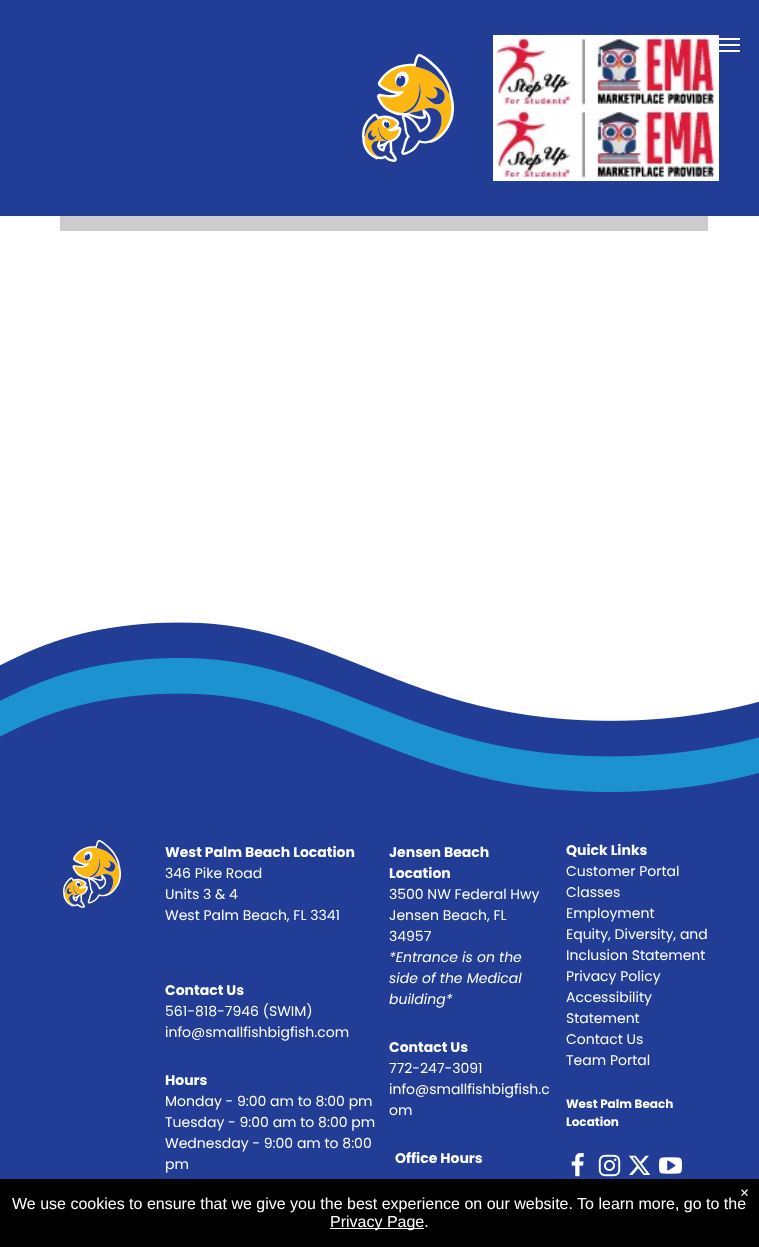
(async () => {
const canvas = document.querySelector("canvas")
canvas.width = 759
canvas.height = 1247
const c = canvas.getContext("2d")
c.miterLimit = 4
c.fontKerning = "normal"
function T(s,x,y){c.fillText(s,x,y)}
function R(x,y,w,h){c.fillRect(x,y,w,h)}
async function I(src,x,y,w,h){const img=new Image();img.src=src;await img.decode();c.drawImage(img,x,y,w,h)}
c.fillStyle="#fff"
R(0,0,759,1247)
c.fillStyle="#223d96"
R(0,0,759,216)
await I("1.png",362,54,92,108)
await I("2.png",493,35,226,73)
await I("2.png",493,108,226,73)
c.fillStyle="#fff"
R(718,38,22,2)
R(718,44,22,2)
R(718,50,22,2)
c.fillStyle="#ccc"
R(60,216,648,15)
await I("3.png",0,622,759,557)
await I("4.png",63,840,58,68)
c.font="bold 14px Poppins"
c.fillStyle="#fff"
T("West Palm Beach Location",165,857)
c.font="14px Poppins"
T("346 Pike Road",165,878)
T("Units 3 & 4",165,899)
T("West Palm Beach, FL 3341",165,920)
c.font="bold 14px Poppins"
T("Contact Us",165,995)
c.font="14px Poppins"
T("561-818-7946 (SWIM)",165,1016)
T("info@smallfishbigfish.com",165,1037)
c.font="bold 14px Poppins"
T("Hours",165,1085)
c.font="14px Poppins"
T("Monday - 9:00 am to 8:00 pm",165,1106)
T("Tuesday - 9:00 am to 8:00 pm",165,1127)
T("Wednesday - 9:00 am to 8:00",165,1148)
T("pm",165,1169)
c.font="bold 14px Poppins"
T("Jensen Beach",389,857)
T("Location",389,878)
c.font="14px Poppins"
T("3500 NW Federal Hwy",389,899)
T("Jensen Beach, FL",389,920)
T("34957",389,941)
c.font="italic 14px Poppins"
T("*Entrance is on the",389,962)
T("side of the Medical",389,983)
T("building*",389,1004)
c.font="bold 14px Poppins"
T("Contact Us",389,1052)
c.font="14px Poppins"
T("772-247-3091",389,1073)
T("info@smallfishbigfish.c",389,1094)
T("om",389,1115)
c.font="bold 14px Poppins"
T("Office Hours",395,1163)
T("Quick Links",566,855)
c.font="14px Poppins"
T("Customer Portal",566,876)
T("Classes",566,897)
T("Employment",566,918)
T("Equity, Diversity, and",566,939)
T("Inclusion Statement",566,960)
T("Privacy Policy",566,981)
T("Accessibility",566,1002)
T("Statement",566,1023)
T("Contact Us",566,1044)
T("Team Portal",566,1065)
c.font="bold 12px Poppins"
T("West Palm Beach",566,1108)
T("Location",566,1126)
await I("5.png",571,1153,13,24)
await I("6.png",598,1154,23,23)
await I("7.png",628,1155,23,20)
await I("8.png",659,1157,23,17)
c.fillStyle="#000"
R(0,1179,759,68)
c.font="bold 16px Liberation Serif"
c.fillStyle="#fff"
T("×",740,1198)
c.font="16px Liberation Sans"
T("We use cookies to ensure that we give you the best experience on our website. To learn more, go to the",12,1209)
R(330,1228,94,1)
T("Privacy Page.",330,1227)
})()
